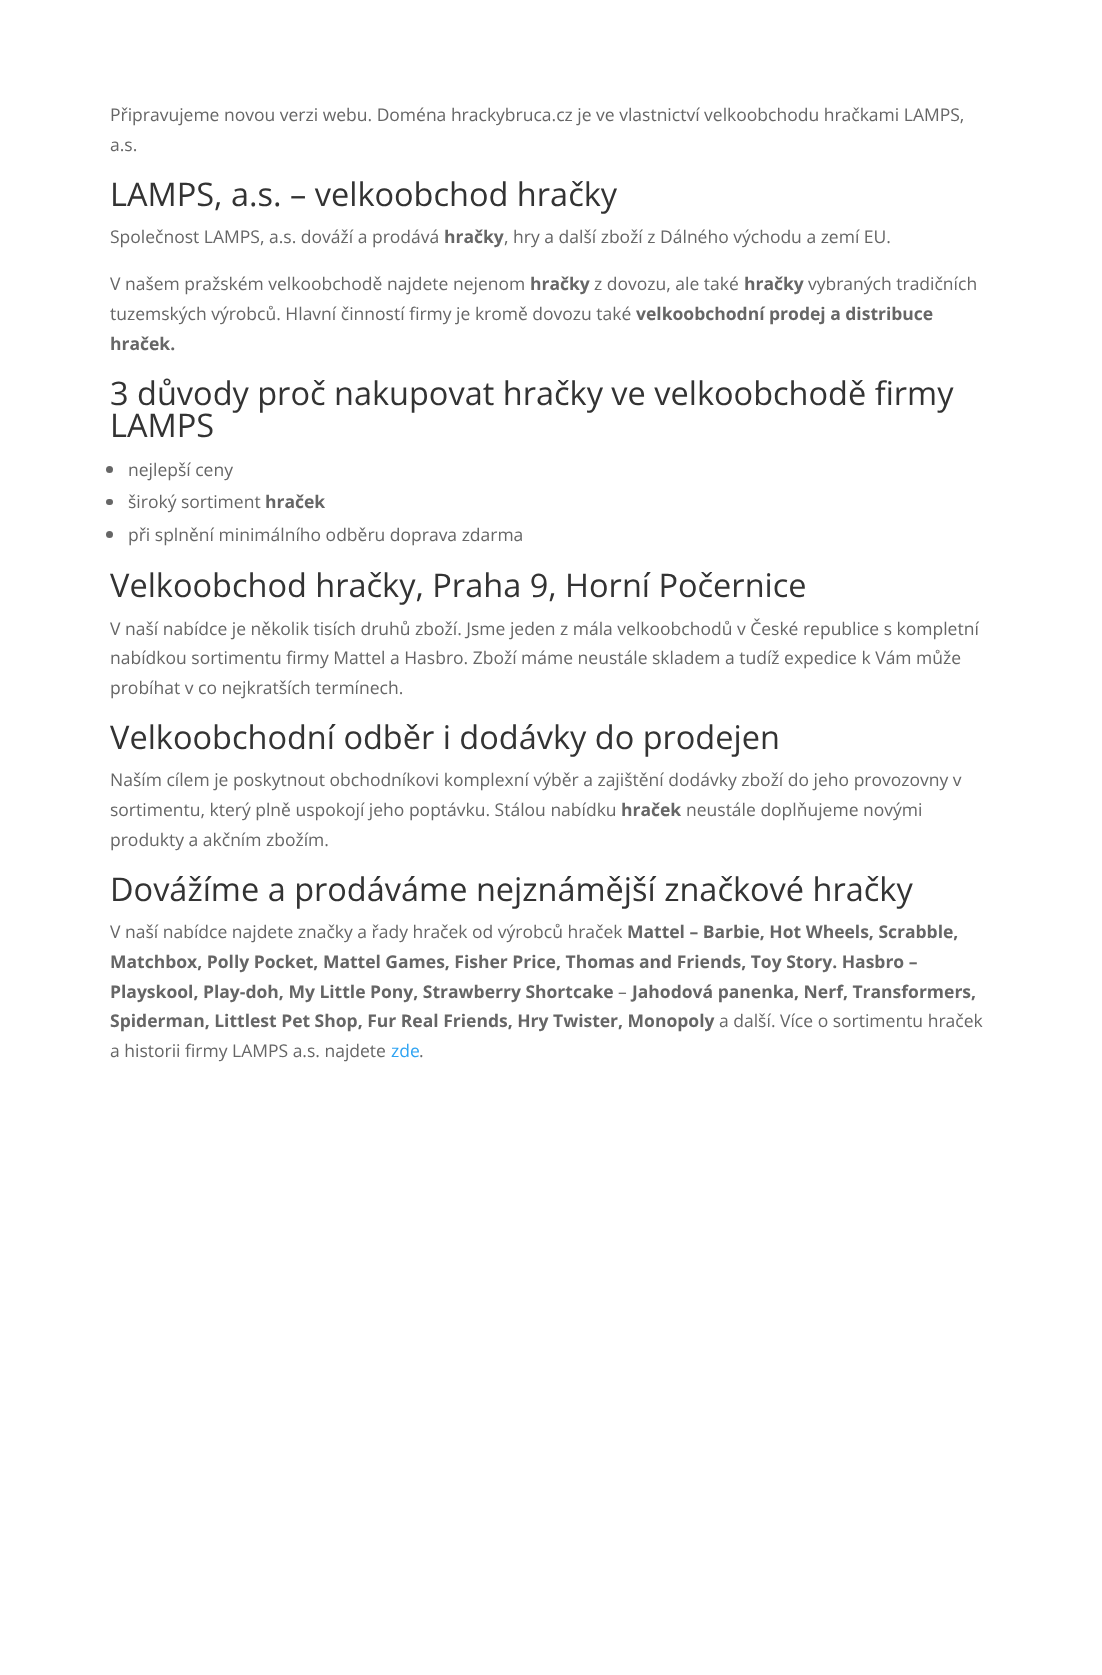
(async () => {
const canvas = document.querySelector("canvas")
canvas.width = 1102
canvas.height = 1675
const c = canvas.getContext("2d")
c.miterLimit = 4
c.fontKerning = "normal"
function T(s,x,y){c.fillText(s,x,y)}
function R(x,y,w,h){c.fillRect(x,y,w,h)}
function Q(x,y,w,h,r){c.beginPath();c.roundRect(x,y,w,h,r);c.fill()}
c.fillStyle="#fff"
R(0,0,1102,1675)
c.font="17.5px Open Sans"
c.fillStyle="#666"
T("Připravujeme novou verzi webu. Doména hrackybruca.cz je ve vlastnictví velkoobchodu hračkami LAMPS,",110,121)
T("a.s.",110,151)
c.font="32.5px Open Sans"
c.fillStyle="#333"
T("LAMPS, a.s. – velkoobchod hračky",110,206)
c.font="17.5px Open Sans"
c.fillStyle="#666"
T("Společnost LAMPS, a.s. dováží a prodává",110,243)
c.font="bold 17.5px Open Sans"
T("hračky",444,243)
c.font="17.5px Open Sans"
T(", hry a další zboží z Dálného východu a zemí EU.",504,243)
T("V našem pražském velkoobchodě najdete nejenom",110,290)
c.font="bold 17.5px Open Sans"
T("hračky",530,290)
c.font="17.5px Open Sans"
T("z dovozu, ale také",594,290)
c.font="bold 17.5px Open Sans"
T("hračky",744,290)
c.font="17.5px Open Sans"
T("vybraných tradičních",808,290)
T("tuzemských výrobců. Hlavní činností firmy je kromě dovozu také",110,320)
c.font="bold 17.5px Open Sans"
T("velkoobchodní prodej a distribuce",636,320)
T("hraček.",110,350)
c.font="32.5px Open Sans"
c.fillStyle="#333"
T("3 důvody proč nakupovat hračky ve velkoobchodě firmy",110,405)
T("LAMPS",110,437)
c.fillStyle="#666"
c.beginPath()
c.arc(109.5,469.5,3.5,0,7)
c.fill()
c.font="17.5px Open Sans"
T("nejlepší ceny",128,476)
Q(106,499,7,6,3)
T("široký sortiment",128,508)
c.font="bold 17.5px Open Sans"
T("hraček",265,508)
c.beginPath()
c.arc(109.5,534.5,3.5,0,7)
c.fill()
c.font="17.5px Open Sans"
T("při splnění minimálního odběru doprava zdarma",128,541)
c.font="32.5px Open Sans"
c.fillStyle="#333"
T("Velkoobchod hračky, Praha 9, Horní Počernice",110,597)
c.font="17.5px Open Sans"
c.fillStyle="#666"
T("V naší nabídce je několik tisích druhů zboží. Jsme jeden z mála velkoobchodů v České republice s kompletní",110,635)
T("nabídkou sortimentu firmy Mattel a Hasbro. Zboží máme neustále skladem a tudíž expedice k Vám může",110,664)
T("probíhat v co nejkratších termínech.",110,694)
c.font="32.5px Open Sans"
c.fillStyle="#333"
T("Velkoobchodní odběr i dodávky do prodejen",110,749)
c.font="17.5px Open Sans"
c.fillStyle="#666"
T("Naším cílem je poskytnout obchodníkovi komplexní výběr a zajištění dodávky zboží do jeho provozovny v",110,786)
T("sortimentu, který plně uspokojí jeho poptávku. Stálou nabídku",110,816)
c.font="bold 17.5px Open Sans"
T("hraček",621,816)
c.font="17.5px Open Sans"
T("neustále doplňujeme novými",686,816)
T("produkty a akčním zbožím.",110,846)
c.font="32.5px Open Sans"
c.fillStyle="#333"
T("Dovážíme a prodáváme nejznámější značkové hračky",110,901)
c.font="17.5px Open Sans"
c.fillStyle="#666"
T("V naší nabídce najdete značky a řady hraček od výrobců hraček",110,938)
c.font="bold 17.5px Open Sans"
T("Mattel – Barbie, Hot Wheels, Scrabble,",627,938)
T("Matchbox, Polly Pocket, Mattel Games, Fisher Price, Thomas and Friends, Toy Story. Hasbro –",110,968)
T("Playskool, Play-doh, My Little Pony, Strawberry Shortcake",110,998)
c.font="17.5px Open Sans"
T("–",618,998)
c.font="bold 17.5px Open Sans"
T("Jahodová panenka, Nerf, Transformers,",632,998)
T("Spiderman, Littlest Pet Shop, Fur Real Friends, Hry Twister, Monopoly",110,1027)
c.font="17.5px Open Sans"
T("a další. Více o sortimentu hraček",719,1027)
T("a historii firmy LAMPS a.s. najdete",110,1057)
c.fillStyle="#2ea3f2"
T("zde",391,1057)
c.fillStyle="#666"
T(".",419,1057)
})()
